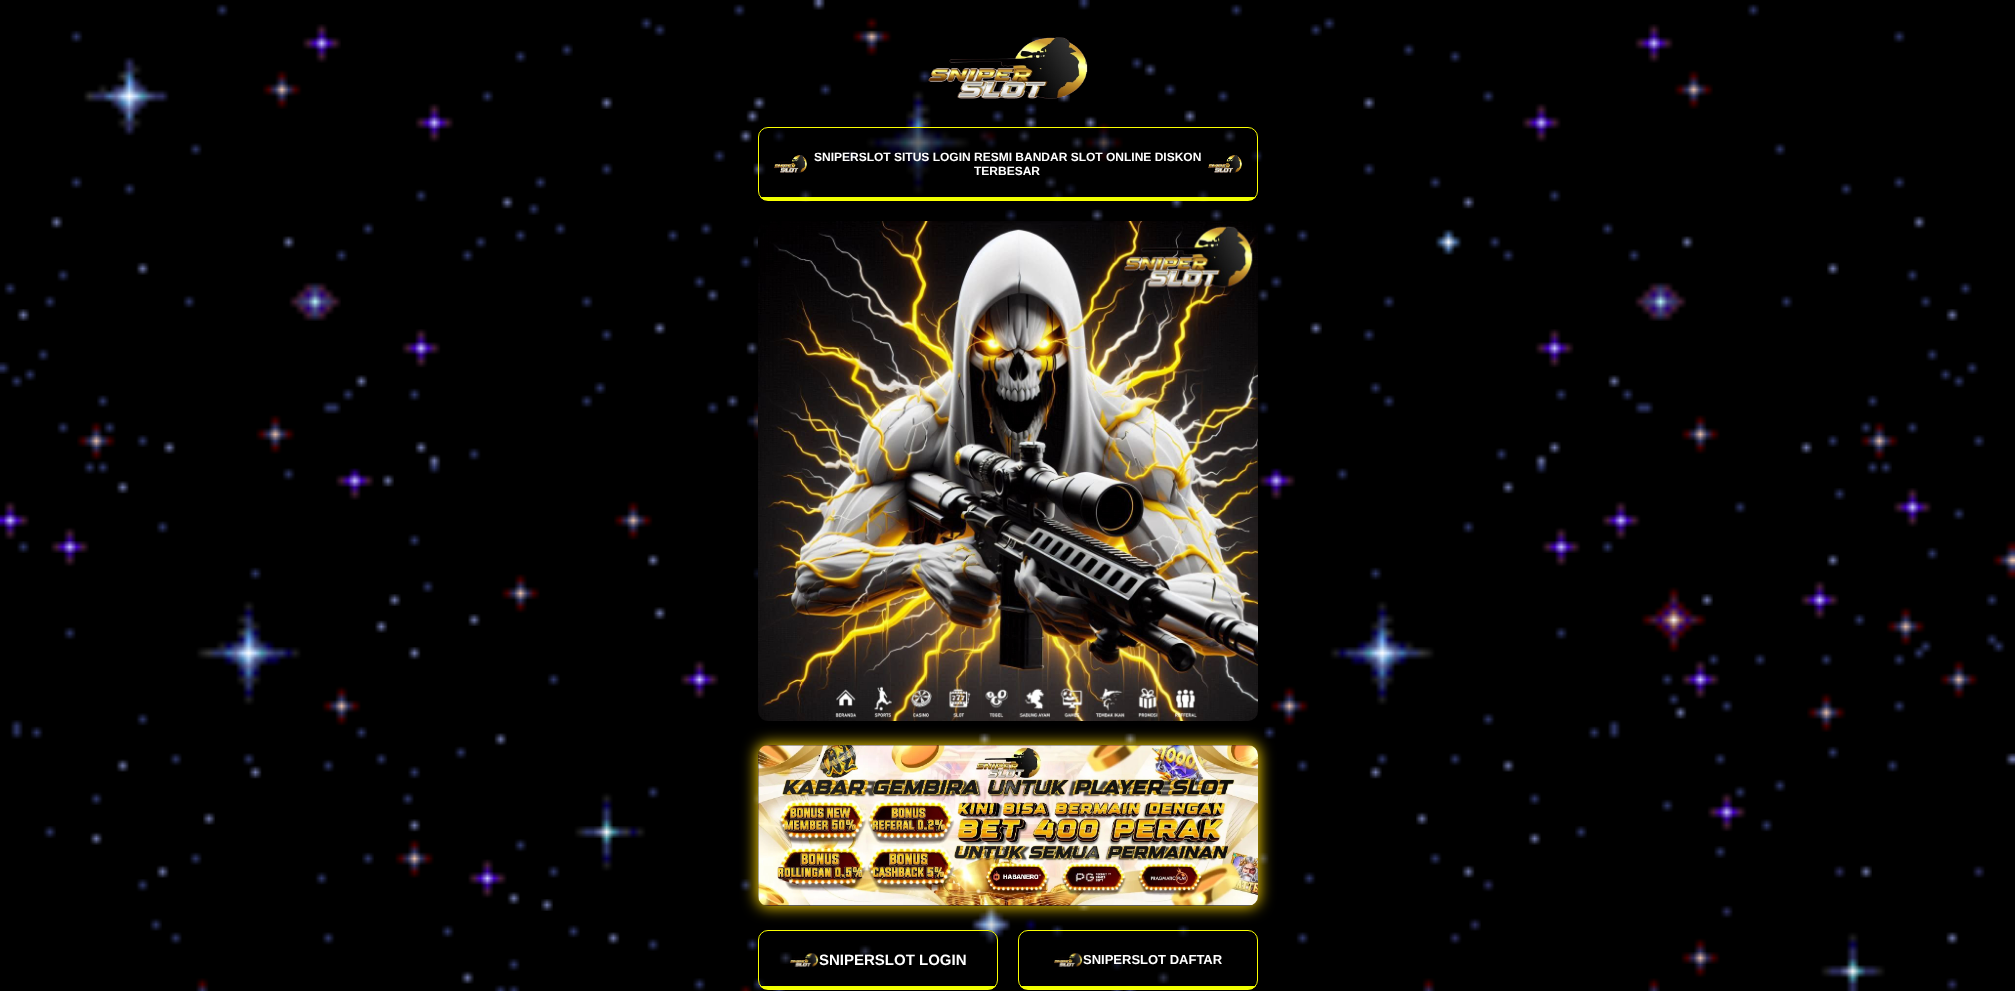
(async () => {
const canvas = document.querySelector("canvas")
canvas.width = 2015
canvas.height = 991
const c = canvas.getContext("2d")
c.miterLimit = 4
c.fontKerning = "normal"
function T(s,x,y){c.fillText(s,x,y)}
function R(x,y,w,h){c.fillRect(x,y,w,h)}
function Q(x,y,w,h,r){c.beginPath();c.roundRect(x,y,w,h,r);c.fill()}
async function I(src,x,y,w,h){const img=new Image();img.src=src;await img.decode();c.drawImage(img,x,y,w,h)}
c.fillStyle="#fff"
R(0,0,2015,991)
await I("1.png",0,0,2015,991)
await I("2.png",928,37,160,62)
c.fillStyle="#00000094"
Q(758,127,500,74,10)
c.save()
c.beginPath()
c.roundRect(758,127,500,74,10)
c.clip()
c.fillStyle="#efff00"
R(759,197,498,3)
c.restore()
c.beginPath()
c.roundRect(758.5,127.5,499,73,9.5)
c.strokeStyle="#fbff00"
c.stroke()
await I("3.png",774,155,33,18)
c.font="bold 12px Liberation Sans"
c.fillStyle="#fff"
T("SNIPERSLOT SITUS LOGIN RESMI BANDAR SLOT ONLINE DISKON",814,161)
T("TERBESAR",974,175)
await I("4.png",1208,155,34,18)
c.fillStyle="#000"
c.filter="blur(7.5px)"
c.beginPath()
c.roundRect(757,220,502,502,11)
c.fill()
c.filter="none"
await I("5.png",758,221,500,500)
c.fillStyle="#ffd700"
c.filter="blur(7.5px)"
c.beginPath()
c.roundRect(757,744,502,163,11)
c.fill()
c.filter="none"
await I("6.png",758,745,500,161)
c.fillStyle="#00000094"
Q(758,930,240,60,10)
c.save()
c.beginPath()
c.roundRect(758,930,240,60,10)
c.clip()
c.fillStyle="#efff00"
R(759,986,238,3)
c.restore()
c.beginPath()
c.roundRect(758.5,930.5,239,59,9.5)
c.stroke()
await I("7.png",790,953,29,14)
c.font="bold 15px Liberation Sans"
c.fillStyle="#fff"
T("SNIPERSLOT LOGIN",819,965)
c.fillStyle="#00000094"
Q(1018,930,240,60,10)
c.save()
c.beginPath()
c.roundRect(1018,930,240,60,10)
c.clip()
c.fillStyle="#efff00"
R(1019,986,238,3)
c.restore()
c.beginPath()
c.roundRect(1018.5,930.5,239,59,9.5)
c.stroke()
await I("8.png",1054,953,29,14)
c.font="bold 13px Liberation Sans"
c.fillStyle="#fff"
T("SNIPERSLOT DAFTAR",1083,964)
})()
